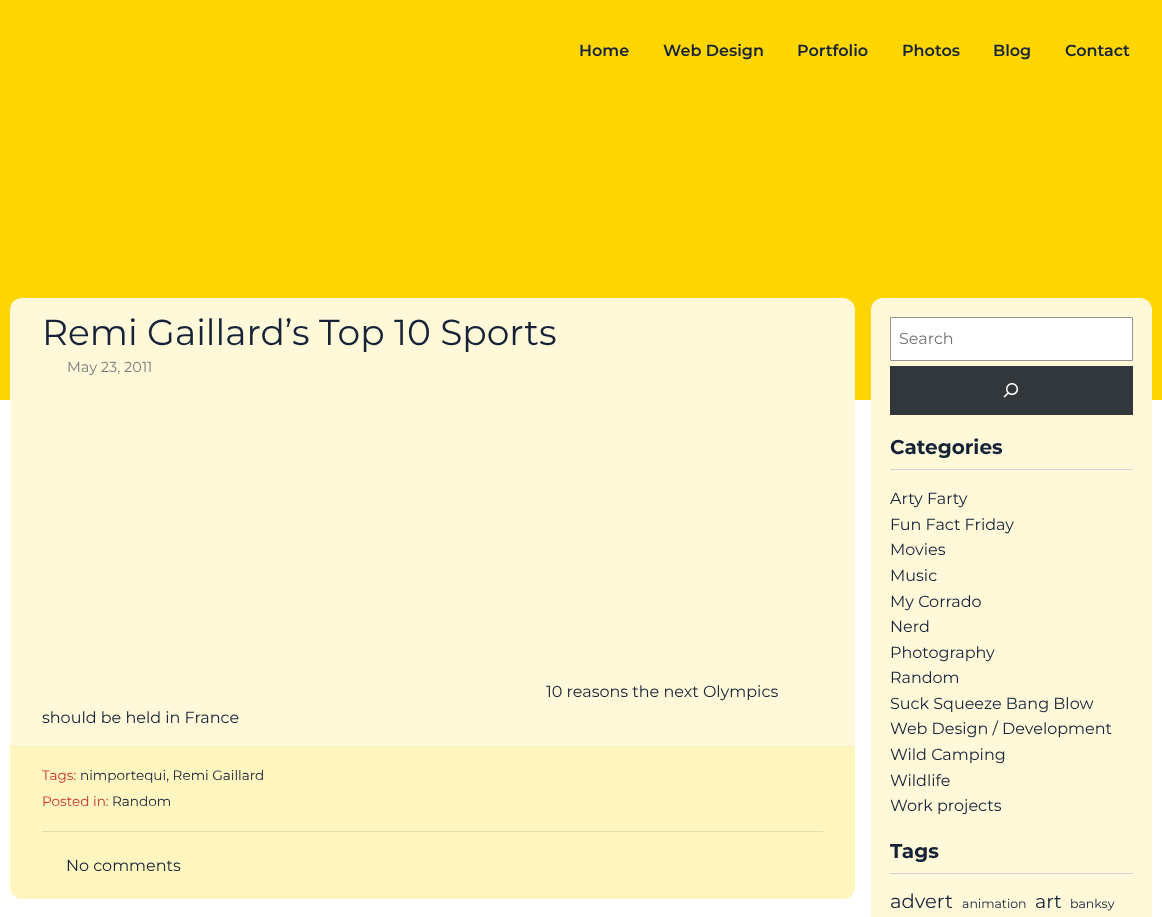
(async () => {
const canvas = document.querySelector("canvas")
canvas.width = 1162
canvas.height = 917
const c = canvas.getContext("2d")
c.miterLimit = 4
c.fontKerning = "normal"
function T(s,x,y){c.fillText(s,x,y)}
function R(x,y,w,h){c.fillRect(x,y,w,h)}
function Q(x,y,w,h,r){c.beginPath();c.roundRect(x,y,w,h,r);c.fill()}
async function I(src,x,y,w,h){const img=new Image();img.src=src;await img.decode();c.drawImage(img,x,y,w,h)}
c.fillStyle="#fff"
R(0,0,1162,917)
c.fillStyle="#ffd600"
R(0,0,1162,400)
c.font="600 16px Montserrat"
c.fillStyle="#152238"
T("Home",579,56)
T("Web Design",663,56)
T("Portfolio",797,56)
T("Photos",902,56)
T("Blog",993,56)
T("Contact",1065,56)
c.fillStyle="#fff9d9"
Q(10,298,845,601,12)
c.font="36px Montserrat"
c.fillStyle="#152238"
T("Remi Gaillard’s Top 10 Sports",42,345)
c.font="14.5px Montserrat"
c.fillStyle="#7b7b7b"
T("May 23, 2011",67,372)
c.font="16px Montserrat"
c.fillStyle="#152238"
T("10 reasons the next Olympics",546,697)
T("should be held in France",42,723)
c.fillStyle="#fff5bf"
c.beginPath()
c.roundRect(10,746,845,153,[0,0,12,12])
c.fill()
c.fillStyle="#f7eec0"
R(10,746,845,1)
c.font="13.6px Montserrat"
c.fillStyle="#c83535"
T("Tags:",42,780)
c.fillStyle="#152238"
T("nimportequi, Remi Gaillard",80,780)
c.fillStyle="#c83535"
T("Posted in:",42,806)
c.fillStyle="#152238"
T("Random",112,806)
c.fillStyle="#e6ddac"
R(42,831,781,1)
c.font="16px Montserrat"
c.fillStyle="#152238"
T("No comments",66,871)
c.fillStyle="#fff9d9"
Q(871,298,281,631,12)
c.fillStyle="#fff"
c.beginPath()
c.rect(890.5,317.5,242,43)
c.fill()
c.strokeStyle="#949494"
c.stroke()
c.fillStyle="#757575"
T("Search",899,344)
c.fillStyle="#32373c"
R(890,366,243,49)
await I("1.png",1003,383,16,15)
c.fillStyle="#d3d3d3"
R(890,469,243,1)
c.font="bold 20px Montserrat"
c.fillStyle="#152238"
T("Categories",890,454)
c.font="16px Montserrat"
T("Arty Farty",890,504)
T("Fun Fact Friday",890,530)
T("Movies",890,555)
T("Music",890,581)
T("My Corrado",890,607)
T("Nerd",890,632)
T("Photography",890,658)
T("Random",890,683)
T("Suck Squeeze Bang Blow",890,709)
T("Web Design / Development",890,734)
T("Wild Camping",890,760)
T("Wildlife",890,786)
T("Work projects",890,811)
c.fillStyle="#d3d3d3"
R(890,873,243,1)
c.font="bold 20px Montserrat"
c.fillStyle="#152238"
T("Tags",890,858)
c.font="19.5px Montserrat"
T("advert",890,908)
c.font="12.5px Montserrat"
T("animation",962,908)
c.font="19px Montserrat"
T("art",1035,908)
c.font="12.5px Montserrat"
T("banksy",1070,908)
})()
